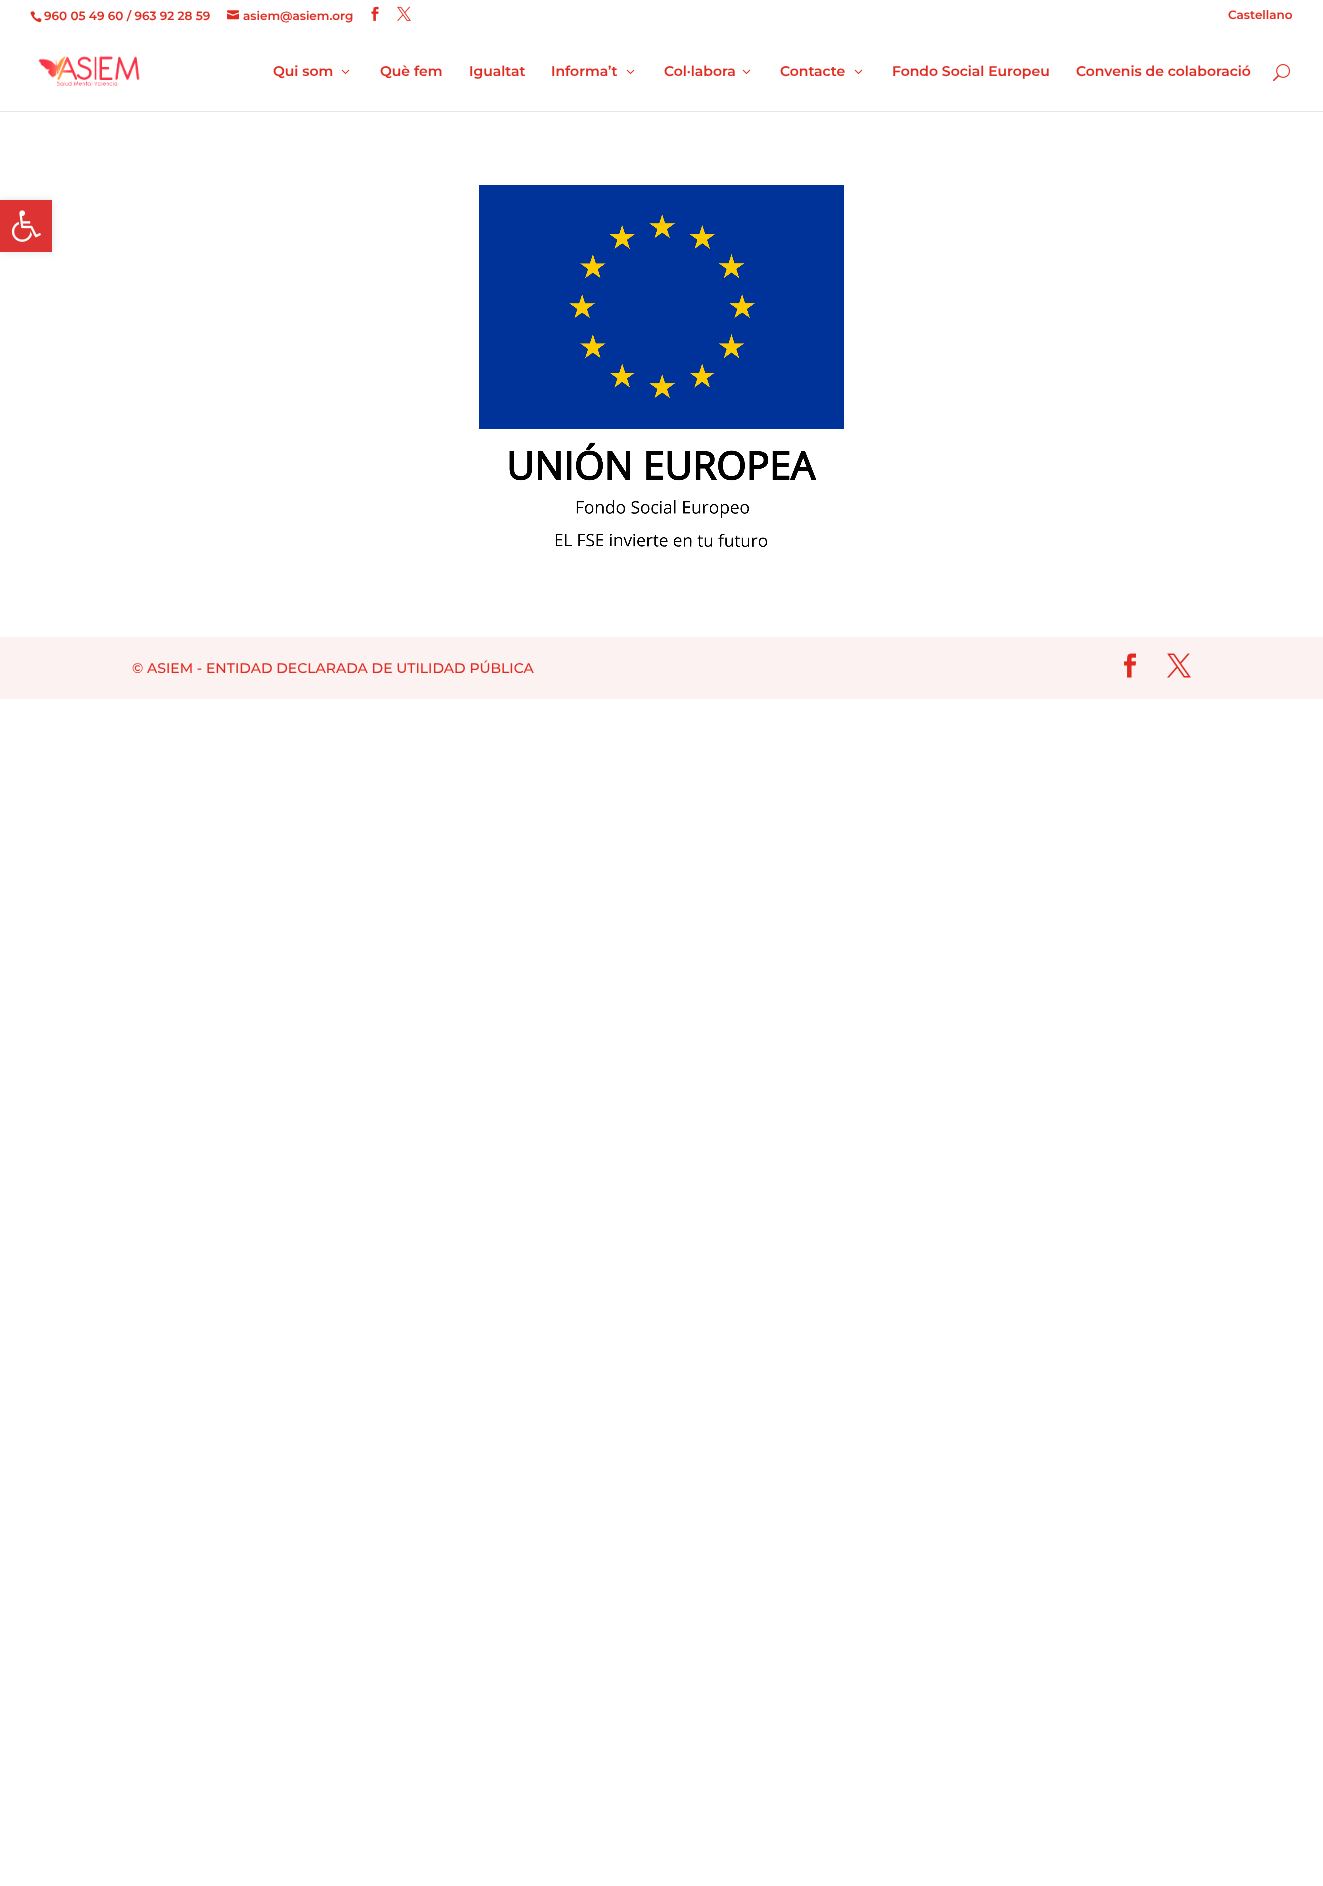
(async () => {
const canvas = document.querySelector("canvas")
canvas.width = 1323
canvas.height = 1886
const c = canvas.getContext("2d")
c.miterLimit = 4
c.fontKerning = "normal"
function T(s,x,y){c.fillText(s,x,y)}
function R(x,y,w,h){c.fillRect(x,y,w,h)}
async function I(src,x,y,w,h){const img=new Image();img.src=src;await img.decode();c.drawImage(img,x,y,w,h)}
c.fillStyle="#fff"
R(0,0,1323,1886)
c.fillStyle="#0000001a"
c.filter="blur(5px)"
c.beginPath()
c.rect(0,200,52,52)
c.fill()
c.filter="none"
c.fillStyle="#d33"
R(0,200,52,52)
await I("1.png",11,210,30,32)
await I("2.png",30,11,12,12)
c.font="600 12px Montserrat"
c.fillStyle="#e02b20"
T("960 05 49 60 / 963 92 28 59",44,20)
await I("3.png",227,10,12,10)
T("asiem@asiem.org",243,20)
await I("4.png",371,6,8,15)
await I("5.png",397,6,14,15)
T("Castellano",1228,19)
c.fillStyle="#e6e6e6"
R(0,111,1323,1)
await I("6.png",38,56,102,30)
c.font="600 14px Montserrat"
c.fillStyle="#e02b20"
T("Qui som",273,76)
await I("7.png",341,69,9,5)
T("Què fem",380,76)
T("Igualtat",469,76)
T("Informa’t",551,76)
await I("7.png",626,69,9,5)
T("Col·labora",664,76)
await I("7.png",742,69,9,5)
T("Contacte",780,76)
await I("7.png",854,69,9,5)
T("Fondo Social Europeu",892,76)
T("Convenis de colaboració",1076,76)
await I("8.png",1273,64,17,18)
await I("9.png",479,185,365,362)
c.fillStyle="#fdf2f2"
R(0,637,1323,62)
c.font="500 14px Montserrat"
c.fillStyle="#e02b20"
T("© ASIEM - ENTIDAD DECLARADA DE UTILIDAD PÚBLICA",132,673)
await I("10.png",1124,653,13,25)
await I("11.png",1167,653,24,25)
})()
